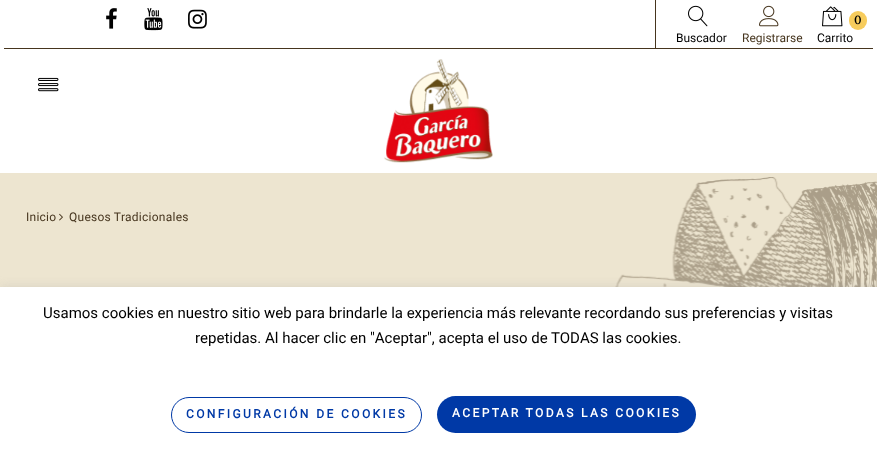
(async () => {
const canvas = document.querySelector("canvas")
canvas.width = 877
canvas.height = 462
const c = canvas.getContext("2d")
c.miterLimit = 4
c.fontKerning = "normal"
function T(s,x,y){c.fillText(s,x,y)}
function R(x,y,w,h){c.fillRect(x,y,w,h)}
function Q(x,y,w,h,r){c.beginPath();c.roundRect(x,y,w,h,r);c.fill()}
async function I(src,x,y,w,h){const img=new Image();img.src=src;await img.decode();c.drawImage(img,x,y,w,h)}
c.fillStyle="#fff"
R(0,0,877,462)
c.fillStyle="#46351e"
R(4,48,869,1)
R(655,0,1,48)
await I("1.png",106,8,11,21)
await I("2.png",144,8,19,23)
await I("3.png",188,9,19,20)
await I("4.png",688,5,20,22)
c.font="12px Heebo"
c.fillStyle="#000"
T("Buscador",676,42)
await I("5.png",759,5,20,22)
c.fillStyle="#46351e"
T("Registrarse",742,42)
await I("6.png",822,6,21,21)
c.fillStyle="#f7cc5c"
Q(849,11,18,19,9)
c.font="12px Volkhov"
c.fillStyle="#000"
T("0",854,24)
c.font="12px Heebo"
T("Carrito",817,42)
await I("7.png",38,77,21,15)
await I("8.png",384,59,109,104)
c.fillStyle="#ede5d0"
R(0,173,877,114)
await I("9.png",615,177,262,110)
c.letterSpacing="0.25px"
c.fillStyle="#46351e"
T("Inicio",26,221)
await I("10.png",59,213,4,8)
T("Quesos Tradicionales",69,221)
c.fillStyle="#acabab4d"
c.filter="blur(5px)"
c.beginPath()
c.rect(0,286,877,175)
c.fill()
c.filter="none"
c.fillStyle="#fff"
R(0,287,877,175)
c.letterSpacing="0px"
c.font="15px Heebo"
c.fillStyle="#000"
T("Usamos cookies en nuestro sitio web para brindarle la experiencia más relevante recordando sus preferencias y visitas",43,318)
T("repetidas. Al hacer clic en \"Aceptar\", acepta el uso de TODAS las cookies.",195,343)
c.beginPath()
c.roundRect(171.5,397.5,250,35,17.5)
c.strokeStyle="#0039a6"
c.stroke()
c.letterSpacing="2.4px"
c.font="bold 12px Heebo"
c.fillStyle="#0039a6"
T("CONFIGURACIÓN DE COOKIES",186,418)
Q(437,396,259,37,18.5)
c.fillStyle="#fff"
T("ACEPTAR TODAS LAS COOKIES",452,417)
})()
